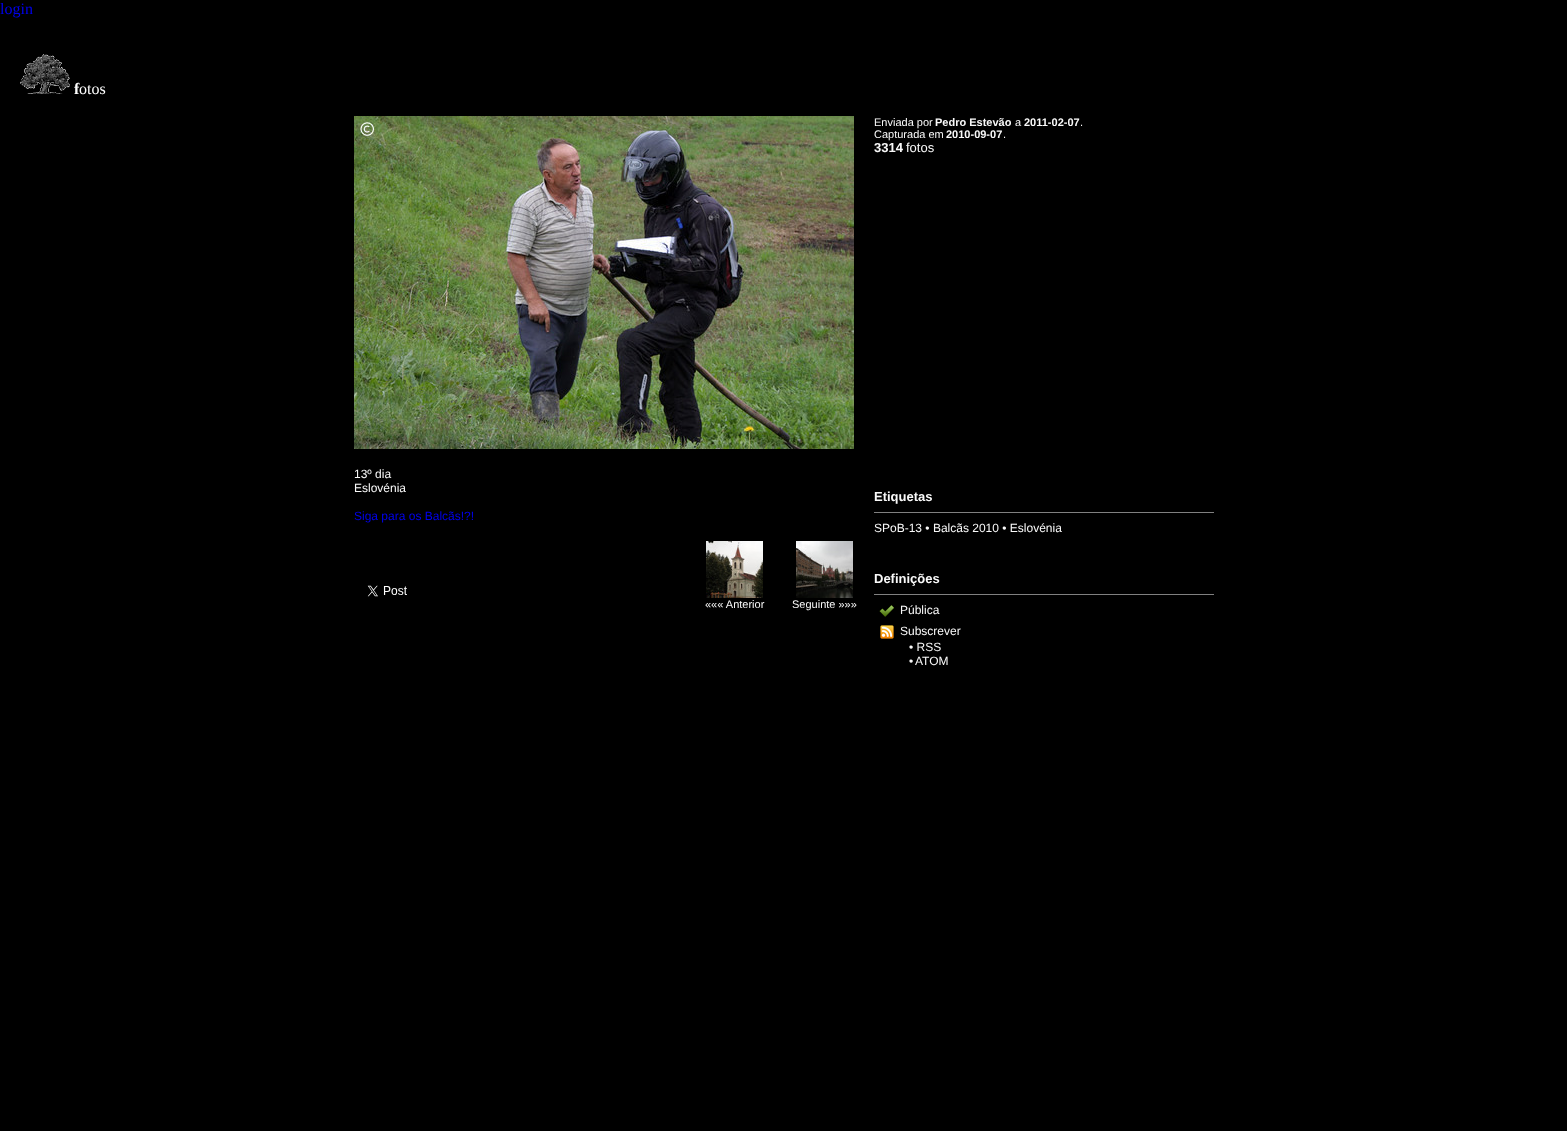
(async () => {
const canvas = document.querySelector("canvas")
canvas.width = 1567
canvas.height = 1131
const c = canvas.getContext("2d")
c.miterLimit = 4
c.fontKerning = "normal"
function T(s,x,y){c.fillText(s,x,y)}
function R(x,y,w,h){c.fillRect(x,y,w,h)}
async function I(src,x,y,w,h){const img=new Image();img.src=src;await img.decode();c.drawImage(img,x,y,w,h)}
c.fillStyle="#000"
R(0,0,1567,1131)
c.font="16px Liberation Serif"
c.fillStyle="#00e"
T("login",0,14)
await I("1.png",20,54,50,40)
c.font="bold 16px Liberation Serif"
c.fillStyle="#fff"
T("f",74,94)
c.font="16px Liberation Serif"
T("otos",79,94)
await I("2.png",354,116,500,333)
c.font="12px Liberation Sans"
c.fillStyle="#f9f9f9"
T("13º dia",354,478)
T("Eslovénia",354,492)
c.fillStyle="#00e"
T("Siga para os Balcãs!?!",354,520)
await I("3.png",367,585,40,12)
await I("4.png",706,541,57,57)
c.font="11px Liberation Sans"
c.fillStyle="#f9f9f9"
T("««« Anterior",705,608)
await I("5.png",796,541,57,57)
T("Seguinte »»»",792,608)
T("Enviada por",874,126)
c.font="bold 11px Liberation Sans"
T("Pedro Estevão",935,126)
c.font="11px Liberation Sans"
T("a",1015,126)
c.font="bold 11px Liberation Sans"
T("2011-02-07",1024,126)
c.font="11px Liberation Sans"
T(".",1080,126)
T("Capturada em",874,138)
c.font="bold 11px Liberation Sans"
T("2010-09-07",946,138)
c.font="11px Liberation Sans"
T(".",1003,138)
c.font="bold 13px Liberation Sans"
T("3314",874,152)
c.font="13px Liberation Sans"
T("fotos",906,152)
c.font="bold 13px Liberation Sans"
T("Etiquetas",874,501)
c.fillStyle="#808080"
R(874,512,340,1)
c.font="12px Liberation Sans"
c.fillStyle="#f9f9f9"
T("SPoB-13 • Balcãs 2010 • Eslovénia",874,532)
c.font="bold 13px Liberation Sans"
T("Definições",874,583)
c.fillStyle="#808080"
R(874,594,340,1)
await I("6.png",879,605,15,12)
c.font="12px Liberation Sans"
c.fillStyle="#f9f9f9"
T("Pública",900,614)
await I("7.png",880,625,14,14)
T("Subscrever",900,635)
T("• RSS",909,651)
T("•",909,665)
T("ATOM",915,665)
})()
